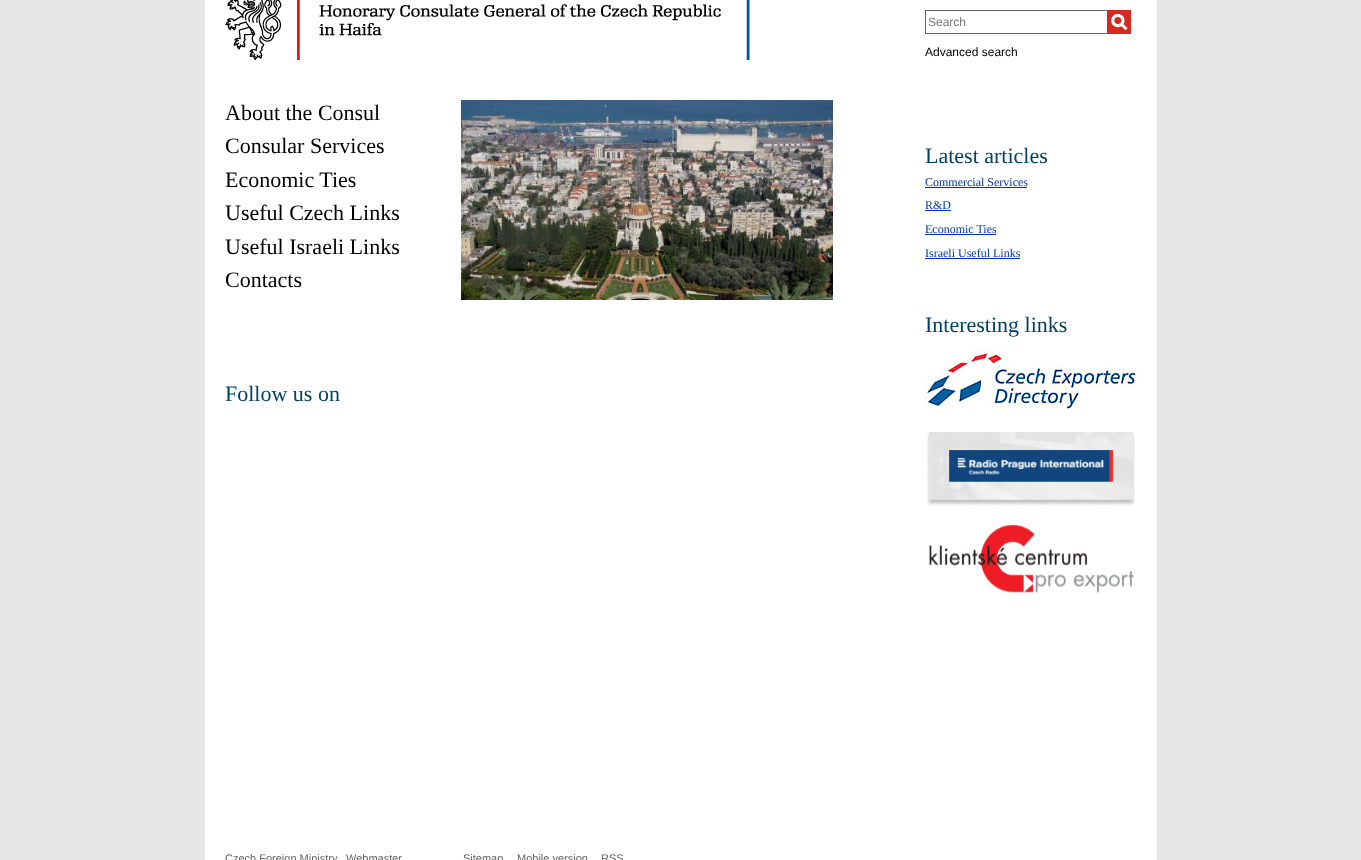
(async () => {
const canvas = document.querySelector("canvas")
canvas.width = 1361
canvas.height = 860
const c = canvas.getContext("2d")
c.miterLimit = 4
c.fontKerning = "normal"
function T(s,x,y){c.fillText(s,x,y)}
function R(x,y,w,h){c.fillRect(x,y,w,h)}
async function I(src,x,y,w,h){const img=new Image();img.src=src;await img.decode();c.drawImage(img,x,y,w,h)}
c.fillStyle="#e7e7e7"
R(0,0,1361,860)
c.fillStyle="#fff"
R(205,0,952,860)
await I("1.png",225,0,525,60)
c.fillStyle="#616365"
R(925,10,182,1)
R(925,33,182,1)
R(925,10,1,24)
c.font="12px Liberation Sans"
c.fillStyle="#757575"
T("Search",928,26)
await I("2.png",1107,10,24,24)
c.fillStyle="#000"
T("Advanced search",925,56)
c.font="22px Liberation Serif"
T("About the Consul",225,120)
T("Consular Services",225,153)
T("Economic Ties",225,187)
T("Useful Czech Links",225,220)
T("Useful Israeli Links",225,254)
T("Contacts",225,287)
await I("3.png",461,100,372,200)
c.fillStyle="#004165"
T("Follow us on",225,401)
T("Latest articles",925,163)
c.font="12px Liberation Serif"
c.fillStyle="#0039a6"
T("Commercial Services",925,186)
R(925,187,102,1)
T("R&D",925,209)
R(925,210,26,1)
T("Economic Ties",925,233)
R(925,234,71,1)
T("Israeli Useful Links",925,257)
R(925,258,95,1)
c.font="22px Liberation Serif"
c.fillStyle="#004165"
T("Interesting links",925,332)
await I("4.png",925,350,212,60)
await I("5.png",927,432,208,74)
await I("6.png",929,524,205,69)
c.font="11px Liberation Sans"
c.fillStyle="#616365"
T("Czech Foreign Ministry",225,862)
T("Webmaster",346,862)
T("Sitemap",463,862)
T("Mobile version",517,862)
T("RSS",601,862)
})()
